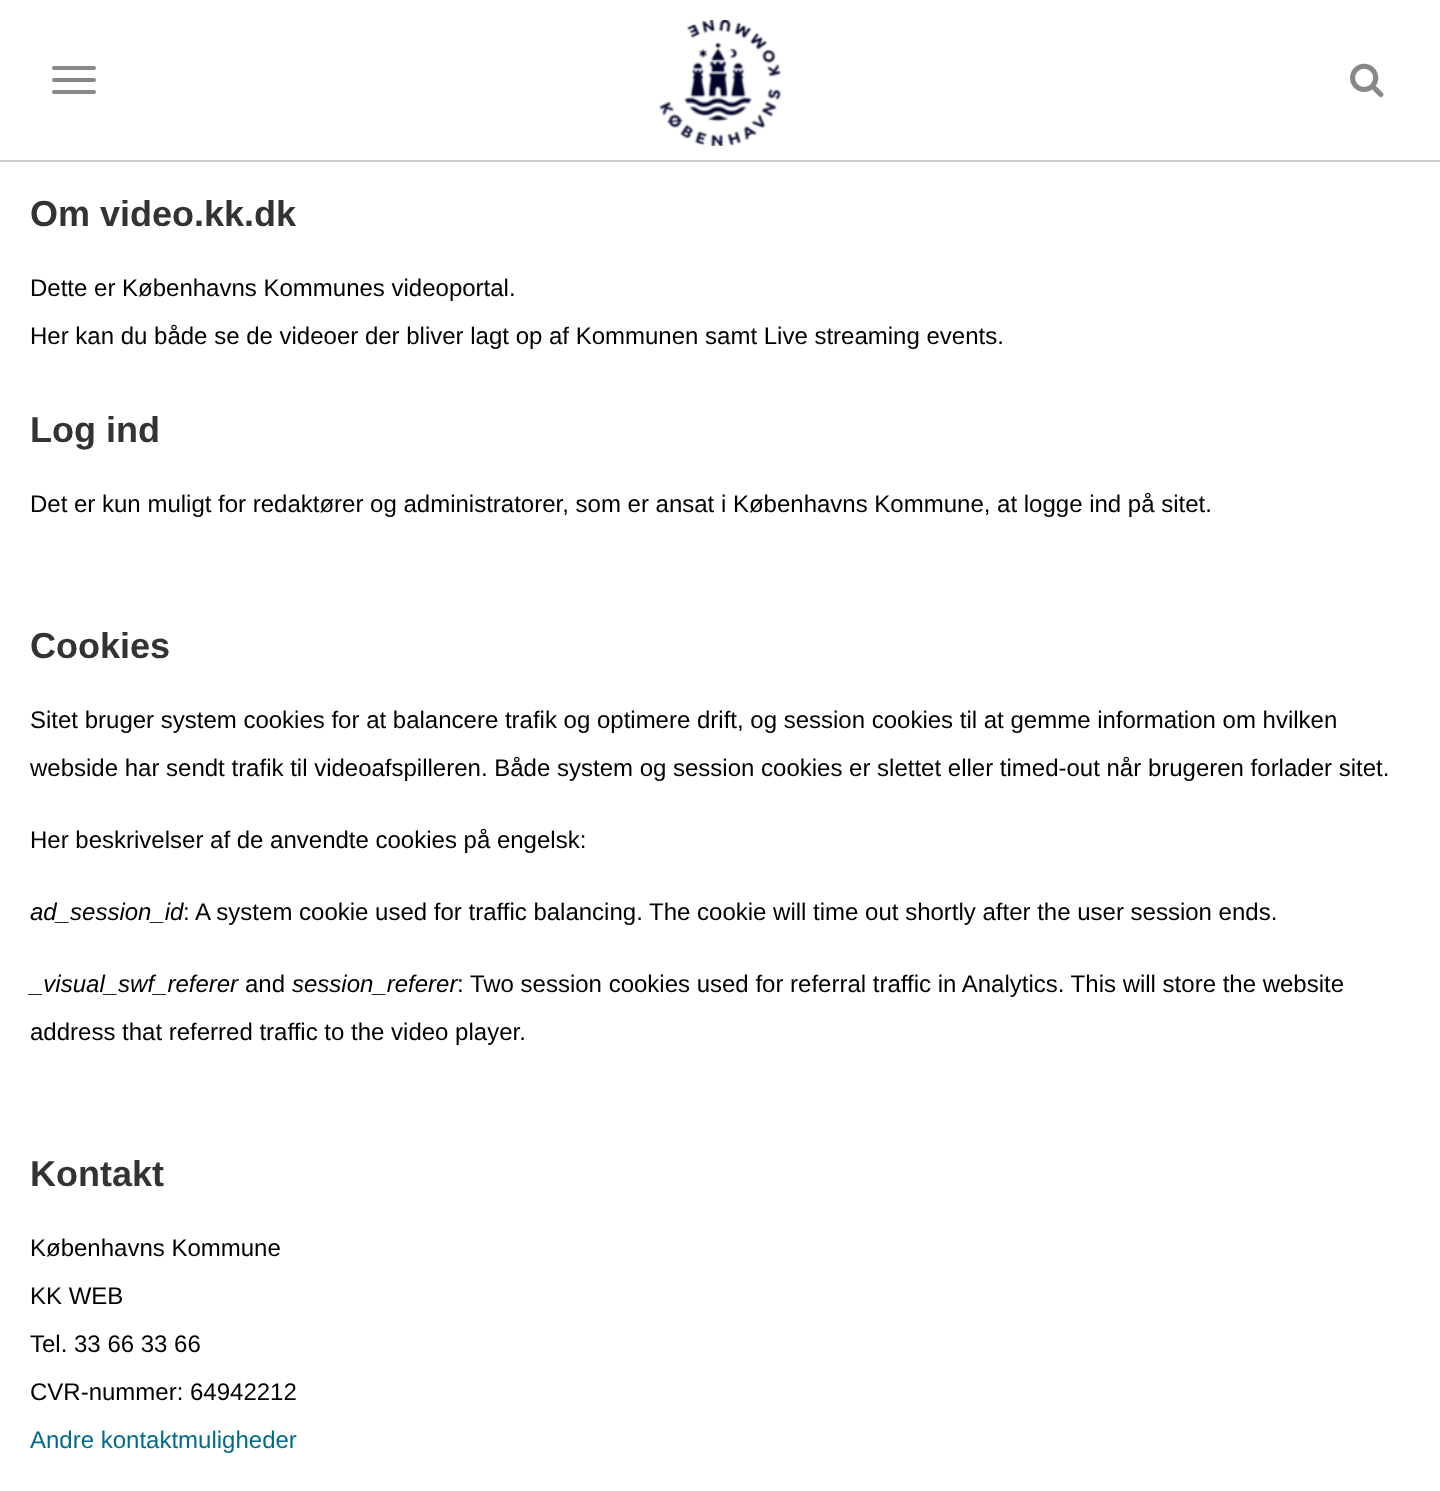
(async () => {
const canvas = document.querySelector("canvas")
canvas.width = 1440
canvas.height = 1491
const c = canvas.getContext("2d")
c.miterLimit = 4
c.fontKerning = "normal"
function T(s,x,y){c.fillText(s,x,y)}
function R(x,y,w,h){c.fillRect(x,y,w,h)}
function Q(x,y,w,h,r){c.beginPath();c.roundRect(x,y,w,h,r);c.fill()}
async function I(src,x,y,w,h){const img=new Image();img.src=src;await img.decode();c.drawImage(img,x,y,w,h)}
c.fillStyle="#fff"
R(0,0,1440,1491)
c.fillStyle="#ccc"
R(0,160,1440,2)
c.fillStyle="#888"
Q(52,66,44,4,2)
Q(52,78,44,4,2)
Q(52,90,44,4,2)
await I("1.png",659,20,122,126)
await I("2.png",1350,63,34,35)
c.font="bold 36px Liberation Sans"
c.fillStyle="#333"
T("Om video.kk.dk",30,226)
c.font="24px Liberation Sans"
c.fillStyle="#000"
T("Dette er Københavns Kommunes videoportal.",30,296)
T("Her kan du både se de videoer der bliver lagt op af Kommunen samt Live streaming events.",30,344)
c.font="bold 36px Liberation Sans"
c.fillStyle="#333"
T("Log ind",30,442)
c.font="24px Liberation Sans"
c.fillStyle="#000"
T("Det er kun muligt for redaktører og administratorer, som er ansat i Københavns Kommune, at logge ind på sitet.",30,512)
c.font="bold 36px Liberation Sans"
c.fillStyle="#333"
T("Cookies",30,658)
c.font="24px Liberation Sans"
c.fillStyle="#000"
T("Sitet bruger system cookies for at balancere trafik og optimere drift, og session cookies til at gemme information om hvilken",30,728)
T("webside har sendt trafik til videoafspilleren. Både system og session cookies er slettet eller timed-out når brugeren forlader sitet.",30,776)
T("Her beskrivelser af de anvendte cookies på engelsk:",30,848)
c.font="italic 24px Liberation Sans"
T("ad_session_id",30,920)
c.font="24px Liberation Sans"
T(": A system cookie used for traffic balancing. The cookie will time out shortly after the user session ends.",183,920)
c.font="italic 24px Liberation Sans"
T("_visual_swf_referer",30,992)
c.font="24px Liberation Sans"
T("and",245,992)
c.font="italic 24px Liberation Sans"
T("session_referer",292,992)
c.font="24px Liberation Sans"
T(": Two session cookies used for referral traffic in Analytics. This will store the website",457,992)
T("address that referred traffic to the video player.",30,1040)
c.font="bold 36px Liberation Sans"
c.fillStyle="#333"
T("Kontakt",30,1186)
c.font="24px Liberation Sans"
c.fillStyle="#000"
T("Københavns Kommune",30,1256)
T("KK WEB",30,1304)
T("Tel. 33 66 33 66",30,1352)
T("CVR-nummer: 64942212",30,1400)
c.fillStyle="#006b8c"
T("Andre kontaktmuligheder",30,1448)
})()
